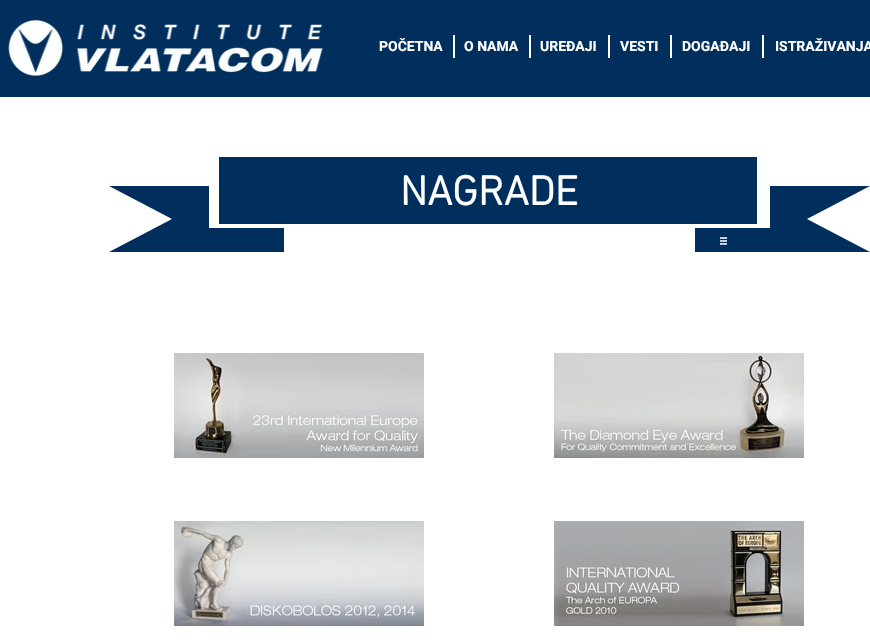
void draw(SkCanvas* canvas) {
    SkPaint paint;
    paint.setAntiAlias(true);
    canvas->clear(0xFFFFFFFF);
    paint.setColor(0xFF002E5D);
    canvas->drawRect(SkRect::MakeXYWH(0, 0, 870, 97), paint);
    canvas->drawImageRect(SkImages::DeferredFromEncodedData(SkData::MakeFromFileName("img1.png")), SkRect::MakeXYWH(8, 19, 315, 57), SkSamplingOptions());
    SkFont font1(fontMgr->matchFamilyStyle("Roboto", SkFontStyle::Bold()), 14);
    font1.setSubpixel(true);
    paint.setColor(0xFFFFFFFF);
    canvas->drawString("POČETNA", 379, 51, font1, paint);
    canvas->drawRect(SkRect::MakeXYWH(453, 35, 2, 23), paint);
    canvas->drawString("O NAMA", 464, 51, font1, paint);
    canvas->drawRect(SkRect::MakeXYWH(529, 35, 2, 23), paint);
    canvas->drawString("UREĐAJI", 540, 51, font1, paint);
    canvas->drawRect(SkRect::MakeXYWH(608, 35, 2, 23), paint);
    canvas->drawString("VESTI", 620, 51, font1, paint);
    canvas->drawRect(SkRect::MakeXYWH(670, 35, 2, 23), paint);
    canvas->drawString("DOGAĐAJI", 682, 51, font1, paint);
    canvas->drawRect(SkRect::MakeXYWH(762, 35, 2, 23), paint);
    canvas->drawString("ISTRAŽIVANJA", 775, 51, font1, paint);
    paint.setColor(0xFF002E5D);
    canvas->drawPath(SkPathBuilder().moveTo(757, 157).lineTo(219, 157).lineTo(219, 224).lineTo(757, 224).close().moveTo(870, 186).lineTo(770, 186).lineTo(770, 228).lineTo(695, 228).lineTo(695, 252).lineTo(870, 252).lineTo(807, 219).close().moveTo(209, 186).lineTo(109, 186).lineTo(172, 219).lineTo(109, 252).lineTo(284, 252).lineTo(284, 228).lineTo(209, 228).close().detach(), paint);
    SkFont font2(fontMgr->matchFamilyStyle("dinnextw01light", SkFontStyle::Bold()), 42);
    font2.setSubpixel(true);
    paint.setColor(0xFFFFFFFF);
    canvas->drawString("NAGRADE", 400, 205, font2, paint);
    canvas->drawImageRect(SkImages::DeferredFromEncodedData(SkData::MakeFromFileName("img2.png")), SkRect::MakeXYWH(720, 237, 7, 8), SkSamplingOptions());
    canvas->drawImageRect(SkImages::DeferredFromEncodedData(SkData::MakeFromFileName("img3.png")), SkRect::MakeXYWH(174, 353, 250, 105), SkSamplingOptions());
    canvas->drawImageRect(SkImages::DeferredFromEncodedData(SkData::MakeFromFileName("img4.png")), SkRect::MakeXYWH(554, 353, 250, 105), SkSamplingOptions());
    canvas->drawImageRect(SkImages::DeferredFromEncodedData(SkData::MakeFromFileName("img5.png")), SkRect::MakeXYWH(174, 521, 250, 105), SkSamplingOptions());
    canvas->drawImageRect(SkImages::DeferredFromEncodedData(SkData::MakeFromFileName("img6.png")), SkRect::MakeXYWH(554, 521, 250, 105), SkSamplingOptions());
}
